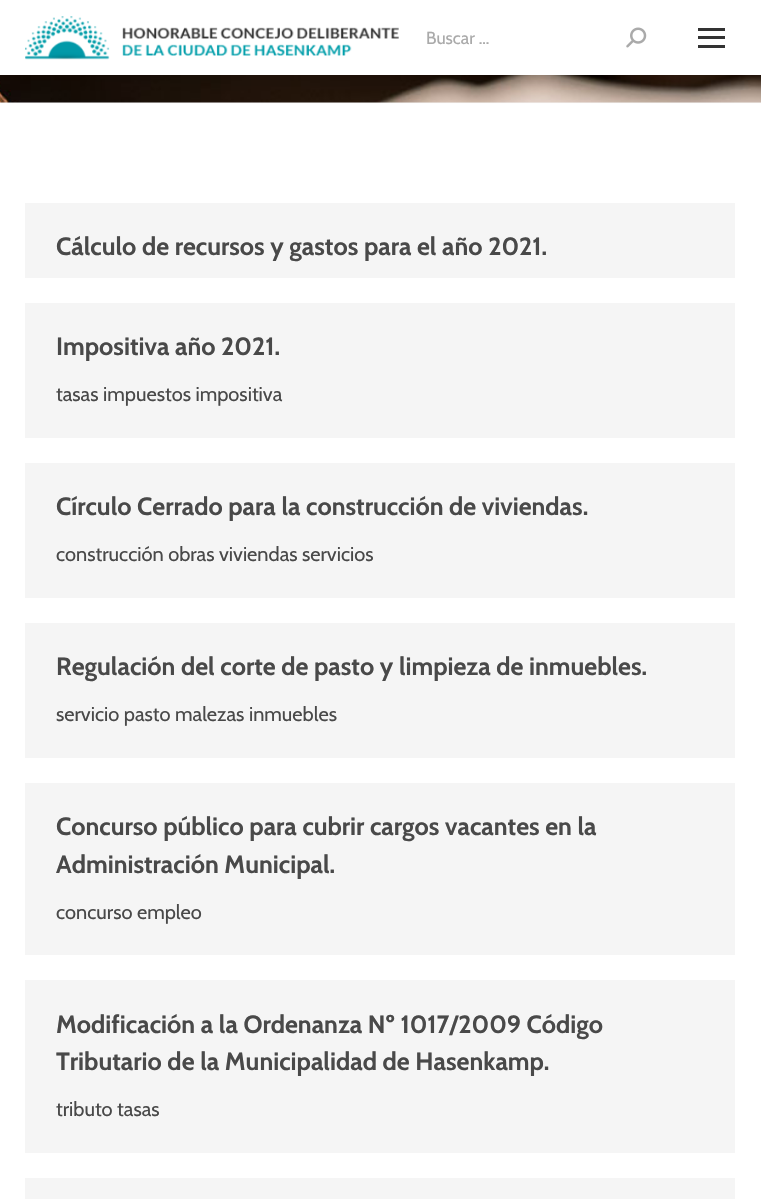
void draw(SkCanvas* canvas) {
    SkPaint paint;
    paint.setAntiAlias(true);
    canvas->clear(0xFFFFFFFF);
    paint.setColor(0xFFF5F5F5);
    canvas->drawRect(SkRect::MakeXYWH(0, 102, 761, 1), paint);
    canvas->drawImageRect(SkImages::DeferredFromEncodedData(SkData::MakeFromFileName("img3.png")), SkRect::MakeXYWH(0, 75, 761, 28), SkSamplingOptions());
    paint.setColor(0x12000000);
    paint.setMaskFilter(SkMaskFilter::MakeBlur(kNormal_SkBlurStyle, 9.5f));
    canvas->drawRect(SkRect::MakeXYWH(-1, -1, 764, 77), paint);
    paint.setMaskFilter(nullptr);
    paint.setColor(0xFFFFFFFF);
    canvas->drawRect(SkRect::MakeXYWH(0, 0, 761, 75), paint);
    canvas->drawImageRect(SkImages::DeferredFromEncodedData(SkData::MakeFromFileName("img1.png")), SkRect::MakeXYWH(25, 16, 374, 44), SkSamplingOptions());
    SkFont font1(fontMgr->matchFamilyStyle("Cabin", SkFontStyle::Normal()), 17.5f);
    font1.setSubpixel(true);
    paint.setColor(0xFFAAAAAA);
    canvas->drawString("Buscar …", 426, 44, font1, paint);
    canvas->drawImageRect(SkImages::DeferredFromEncodedData(SkData::MakeFromFileName("img2.png")), SkRect::MakeXYWH(626, 27, 21, 21), SkSamplingOptions());
    paint.setColor(0xFF333333);
    canvas->drawRect(SkRect::MakeXYWH(698, 28, 27, 3), paint);
    canvas->drawRect(SkRect::MakeXYWH(698, 36, 27, 3), paint);
    canvas->drawRect(SkRect::MakeXYWH(698, 45, 27, 3), paint);
    paint.setColor(0xFFF5F5F5);
    canvas->drawRect(SkRect::MakeXYWH(25, 203, 710, 75), paint);
    SkFont font2(fontMgr->matchFamilyStyle("Cabin", SkFontStyle::Bold()), 25);
    font2.setSubpixel(true);
    paint.setColor(0xFF494949);
    canvas->drawString("Cálculo de recursos y gastos para el año 2021.", 56, 255, font2, paint);
    paint.setColor(0xFFF5F5F5);
    canvas->drawRect(SkRect::MakeXYWH(25, 303, 710, 135), paint);
    paint.setColor(0xFF494949);
    canvas->drawString("Impositiva año 2021.", 56, 355, font2, paint);
    SkFont font3(fontMgr->matchFamilyStyle("Cabin", SkFontStyle::Normal()), 20);
    font3.setSubpixel(true);
    canvas->drawString("tasas impuestos impositiva", 56, 401, font3, paint);
    paint.setColor(0xFFF5F5F5);
    canvas->drawRect(SkRect::MakeXYWH(25, 463, 710, 135), paint);
    paint.setColor(0xFF494949);
    canvas->drawString("Círculo Cerrado para la construcción de viviendas.", 56, 515, font2, paint);
    canvas->drawString("construcción obras viviendas servicios", 56, 561, font3, paint);
    paint.setColor(0xFFF5F5F5);
    canvas->drawRect(SkRect::MakeXYWH(25, 623, 710, 135), paint);
    paint.setColor(0xFF494949);
    canvas->drawString("Regulación del corte de pasto y limpieza de inmuebles.", 56, 675, font2, paint);
    canvas->drawString("servicio pasto malezas inmuebles", 56, 721, font3, paint);
    paint.setColor(0xFFF5F5F5);
    canvas->drawRect(SkRect::MakeXYWH(25, 783, 710, 172), paint);
    paint.setColor(0xFF494949);
    canvas->drawString("Concurso público para cubrir cargos vacantes en la", 56, 835, font2, paint);
    canvas->drawString("Administración Municipal.", 56, 873, font2, paint);
    canvas->drawString("concurso empleo", 56, 919, font3, paint);
    paint.setColor(0xFFF5F5F5);
    canvas->drawRect(SkRect::MakeXYWH(25, 980, 710, 173), paint);
    paint.setColor(0xFF494949);
    canvas->drawString("Modificación a la Ordenanza Nº 1017/2009 Código", 56, 1033, font2, paint);
    canvas->drawString("Tributario de la Municipalidad de Hasenkamp.", 56, 1070, font2, paint);
    canvas->drawString("tributo tasas", 56, 1116, font3, paint);
    paint.setColor(0xFFF5F5F5);
    canvas->drawRect(SkRect::MakeXYWH(25, 1178, 710, 21), paint);
}
